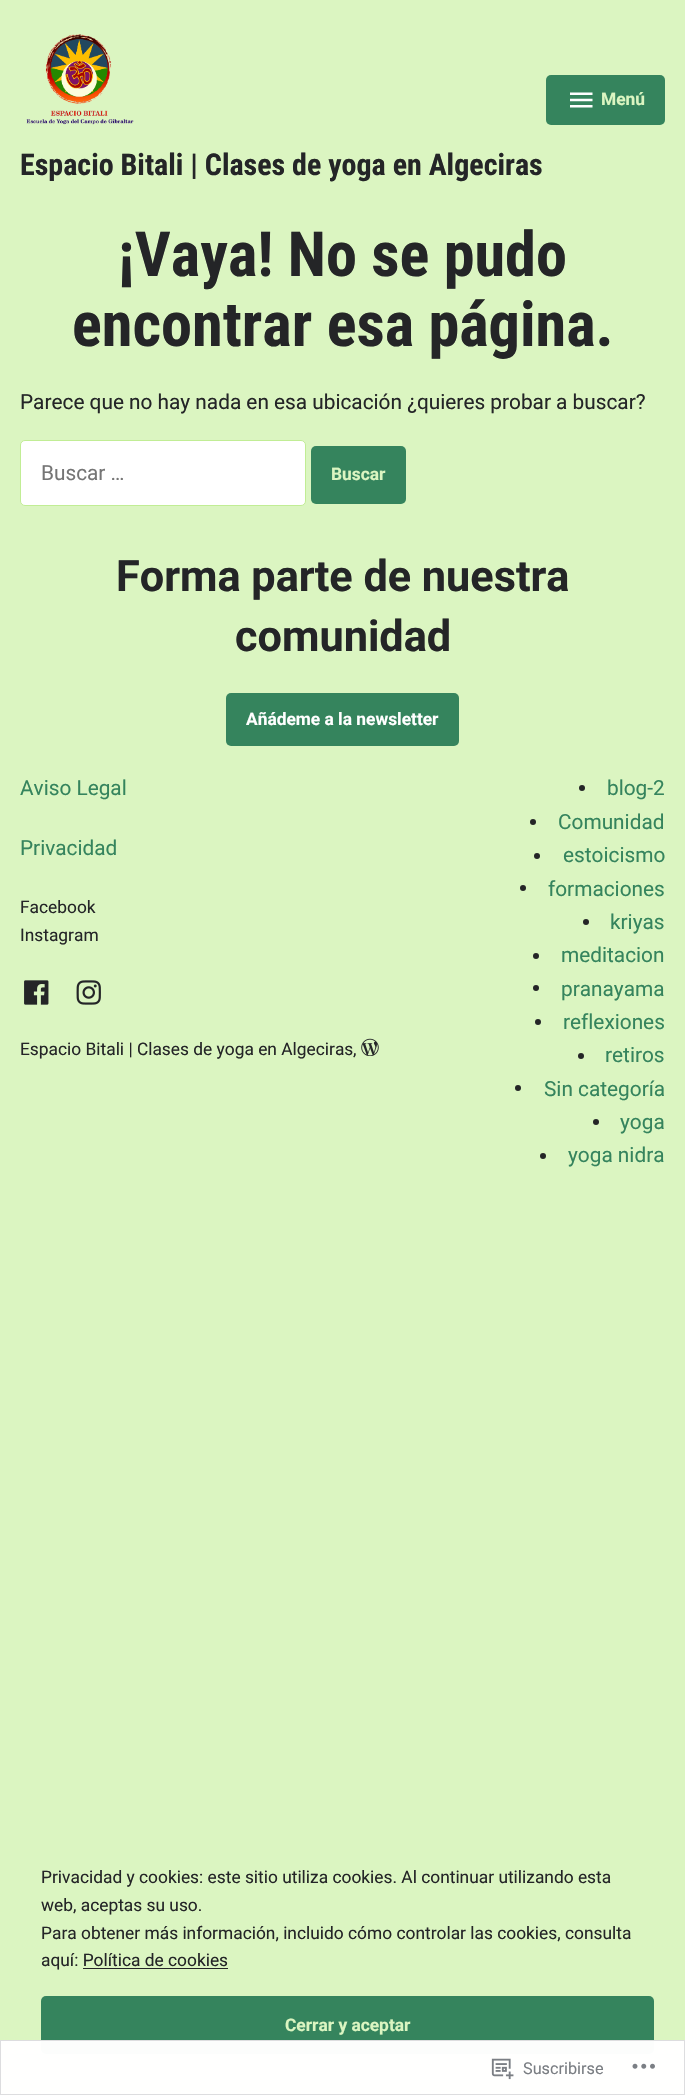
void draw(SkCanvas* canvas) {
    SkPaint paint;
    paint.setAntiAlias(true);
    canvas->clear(0xFFDBF5C1);
    paint.setColor(0xFF35845D);
    canvas->drawRoundRect(SkRect::MakeXYWH(546, 75, 119, 50), 5, 5, paint);
    canvas->drawImageRect(SkImages::DeferredFromEncodedData(SkData::MakeFromFileName("img1.png")), SkRect::MakeXYWH(570, 92, 23, 16), SkSamplingOptions());
    SkFont font1(fontMgr->matchFamilyStyle("Roboto", SkFontStyle::Bold()), 17.35f);
    font1.setSubpixel(true);
    paint.setColor(0xFFDBF5C1);
    canvas->drawString("Menú", 601, 105, font1, paint);
    canvas->drawImageRect(SkImages::DeferredFromEncodedData(SkData::MakeFromFileName("img2.png")), SkRect::MakeXYWH(26, 34, 108, 91), SkSamplingOptions());
    SkFont font2(fontMgr->matchFamilyStyle("Roboto Condensed", SkFontStyle::Bold()), 30);
    font2.setSubpixel(true);
    paint.setColor(0xFF242527);
    canvas->drawString("Espacio Bitali | Clases de yoga en Algeciras", 20, 175, font2, paint);
    SkFont font3(fontMgr->matchFamilyStyle("Roboto Condensed", SkFontStyle::Bold()), 62.25f);
    font3.setSubpixel(true);
    canvas->drawString("¡Vaya! No se pudo", 118, 276, font3, paint);
    canvas->drawString("encontrar esa página.", 72, 346, font3, paint);
    SkFont font4(fontMgr->matchFamilyStyle("Roboto", SkFontStyle::Normal()), 20.8f);
    font4.setSubpixel(true);
    canvas->drawString("Parece que no hay nada en esa ubicación ¿quieres probar a buscar?", 20, 409, font4, paint);
    paint.setColor(0xFFFFFFFF);
    canvas->drawRoundRect(SkRect::MakeXYWH(20.5f, 440.5f, 285, 65), 4.5f, 4.5f, paint);
    paint.setStyle(SkPaint::kStroke_Style);
    paint.setStrokeWidth(1);
    paint.setColor(0xFFC1ED95);
    canvas->drawRoundRect(SkRect::MakeXYWH(20.5f, 440.5f, 285, 65), 4.5f, 4.5f, paint);
    paint.setStyle(SkPaint::kFill_Style);
    paint.setColor(0xFF757575);
    canvas->drawString("Buscar …", 41, 480, font4, paint);
    paint.setColor(0xFF35845D);
    canvas->drawRoundRect(SkRect::MakeXYWH(311, 446, 95, 58), 5, 5, paint);
    paint.setColor(0xFFDBF5C1);
    canvas->drawString("Buscar", 331, 480, font1, paint);
    SkFont font5(fontMgr->matchFamilyStyle("Roboto", SkFontStyle::Bold()), 43.25f);
    font5.setSubpixel(true);
    paint.setColor(0xFF242527);
    canvas->drawString("Forma parte de nuestra", 116, 591, font5, paint);
    canvas->drawString("comunidad", 235, 651, font5, paint);
    paint.setColor(0xFF35845D);
    canvas->drawRoundRect(SkRect::MakeXYWH(226, 693, 233, 53), 5, 5, paint);
    paint.setColor(0xFFFFFFFF);
    canvas->drawString("Añádeme a la newsletter", 246, 725, font1, paint);
    paint.setColor(0xFF35845D);
    canvas->drawString("Aviso Legal", 20, 795, font4, paint);
    paint.setColor(0xFF242527);
    canvas->drawCircle(582, 788, 3, paint);
    paint.setColor(0xFF35845D);
    canvas->drawString("blog-2", 607, 795, font4, paint);
    paint.setColor(0xFF242527);
    canvas->drawCircle(533, 822, 3, paint);
    paint.setColor(0xFF35845D);
    canvas->drawString("Comunidad", 558, 829, font4, paint);
    paint.setColor(0xFF242527);
    canvas->drawCircle(537, 856, 3, paint);
    paint.setColor(0xFF35845D);
    canvas->drawString("estoicismo", 563, 862, font4, paint);
    paint.setColor(0xFF242527);
    canvas->drawCircle(523, 888, 3, paint);
    paint.setColor(0xFF35845D);
    canvas->drawString("formaciones", 548, 896, font4, paint);
    paint.setColor(0xFF242527);
    canvas->drawCircle(586, 922, 3, paint);
    paint.setColor(0xFF35845D);
    canvas->drawString("kriyas", 610, 929, font4, paint);
    paint.setColor(0xFF242527);
    canvas->drawCircle(536, 956, 3, paint);
    paint.setColor(0xFF35845D);
    canvas->drawString("meditacion", 561, 962, font4, paint);
    paint.setColor(0xFF242527);
    canvas->drawCircle(536, 988, 3, paint);
    paint.setColor(0xFF35845D);
    canvas->drawString("pranayama", 561, 996, font4, paint);
    paint.setColor(0xFF242527);
    canvas->drawCircle(538, 1022, 3, paint);
    paint.setColor(0xFF35845D);
    canvas->drawString("reflexiones", 563, 1029, font4, paint);
    paint.setColor(0xFF242527);
    canvas->drawCircle(581, 1056, 3, paint);
    paint.setColor(0xFF35845D);
    canvas->drawString("retiros", 605, 1062, font4, paint);
    paint.setColor(0xFF242527);
    canvas->drawCircle(518, 1088, 3, paint);
    paint.setColor(0xFF35845D);
    canvas->drawString("Sin categoría", 544, 1096, font4, paint);
    paint.setColor(0xFF242527);
    canvas->drawCircle(596, 1122, 3, paint);
    paint.setColor(0xFF35845D);
    canvas->drawString("yoga", 620, 1129, font4, paint);
    paint.setColor(0xFF242527);
    canvas->drawCircle(543, 1156, 3, paint);
    paint.setColor(0xFF35845D);
    canvas->drawString("yoga nidra", 568, 1162, font4, paint);
    canvas->drawString("Privacidad", 20, 855, font4, paint);
    SkFont font6(fontMgr->matchFamilyStyle("Roboto", SkFontStyle::Normal()), 17.35f);
    font6.setSubpixel(true);
    paint.setColor(0xFF242527);
    canvas->drawString("Facebook", 20, 913, font6, paint);
    canvas->drawString("Instagram", 20, 941, font6, paint);
    canvas->drawImageRect(SkImages::DeferredFromEncodedData(SkData::MakeFromFileName("img3.png")), SkRect::MakeXYWH(24, 980, 25, 25), SkSamplingOptions());
    canvas->drawImageRect(SkImages::DeferredFromEncodedData(SkData::MakeFromFileName("img4.png")), SkRect::MakeXYWH(76, 980, 25, 25), SkSamplingOptions());
    canvas->drawString("Espacio Bitali | Clases de yoga en Algeciras", 20, 1055, font6, paint);
    canvas->drawString(",", 353, 1055, font6, paint);
    canvas->drawImageRect(SkImages::DeferredFromEncodedData(SkData::MakeFromFileName("img5.png")), SkRect::MakeXYWH(361, 1038, 18, 18), SkSamplingOptions());
    canvas->drawString("Privacidad y cookies: este sitio utiliza cookies. Al continuar utilizando esta", 41, 1883, font6, paint);
    canvas->drawString("web, aceptas su uso.", 41, 1911, font6, paint);
    canvas->drawString("Para obtener más información, incluido cómo controlar las cookies, consulta", 41, 1939, font6, paint);
    canvas->drawString("aquí: Política de cookies", 41, 1966, font6, paint);
    canvas->drawRect(SkRect::MakeXYWH(83, 1968, 145, 1), paint);
    paint.setColor(0xFF35845D);
    canvas->drawRoundRect(SkRect::MakeXYWH(41, 1996, 613, 58), 5, 5, paint);
    paint.setColor(0xFFDBF5C1);
    canvas->drawString("Cerrar y aceptar", 285, 2031, font1, paint);
    paint.setColor(0xFAFFFFFF);
    canvas->drawRect(SkRect::MakeXYWH(0, 2040, 685, 55), paint);
    paint.setStyle(SkPaint::kStroke_Style);
    paint.setColor(0xFADCDCDE);
    canvas->drawRect(SkRect::MakeXYWH(0.5f, 2040.5f, 684, 54), paint);
    canvas->drawImageRect(SkImages::DeferredFromEncodedData(SkData::MakeFromFileName("img6.png")), SkRect::MakeXYWH(491, 2058, 23, 22), SkSamplingOptions());
    SkFont font7(fontMgr->matchFamilyStyle("Roboto", SkFontStyle::Normal()), 16.25f);
    font7.setSubpixel(true);
    paint.setStyle(SkPaint::kFill_Style);
    paint.setColor(0xFF7A7E83);
    canvas->drawString("Suscribirse", 523, 2074, font7, paint);
    canvas->drawImageRect(SkImages::DeferredFromEncodedData(SkData::MakeFromFileName("img7.png")), SkRect::MakeXYWH(632, 2063, 23, 6), SkSamplingOptions());
}
